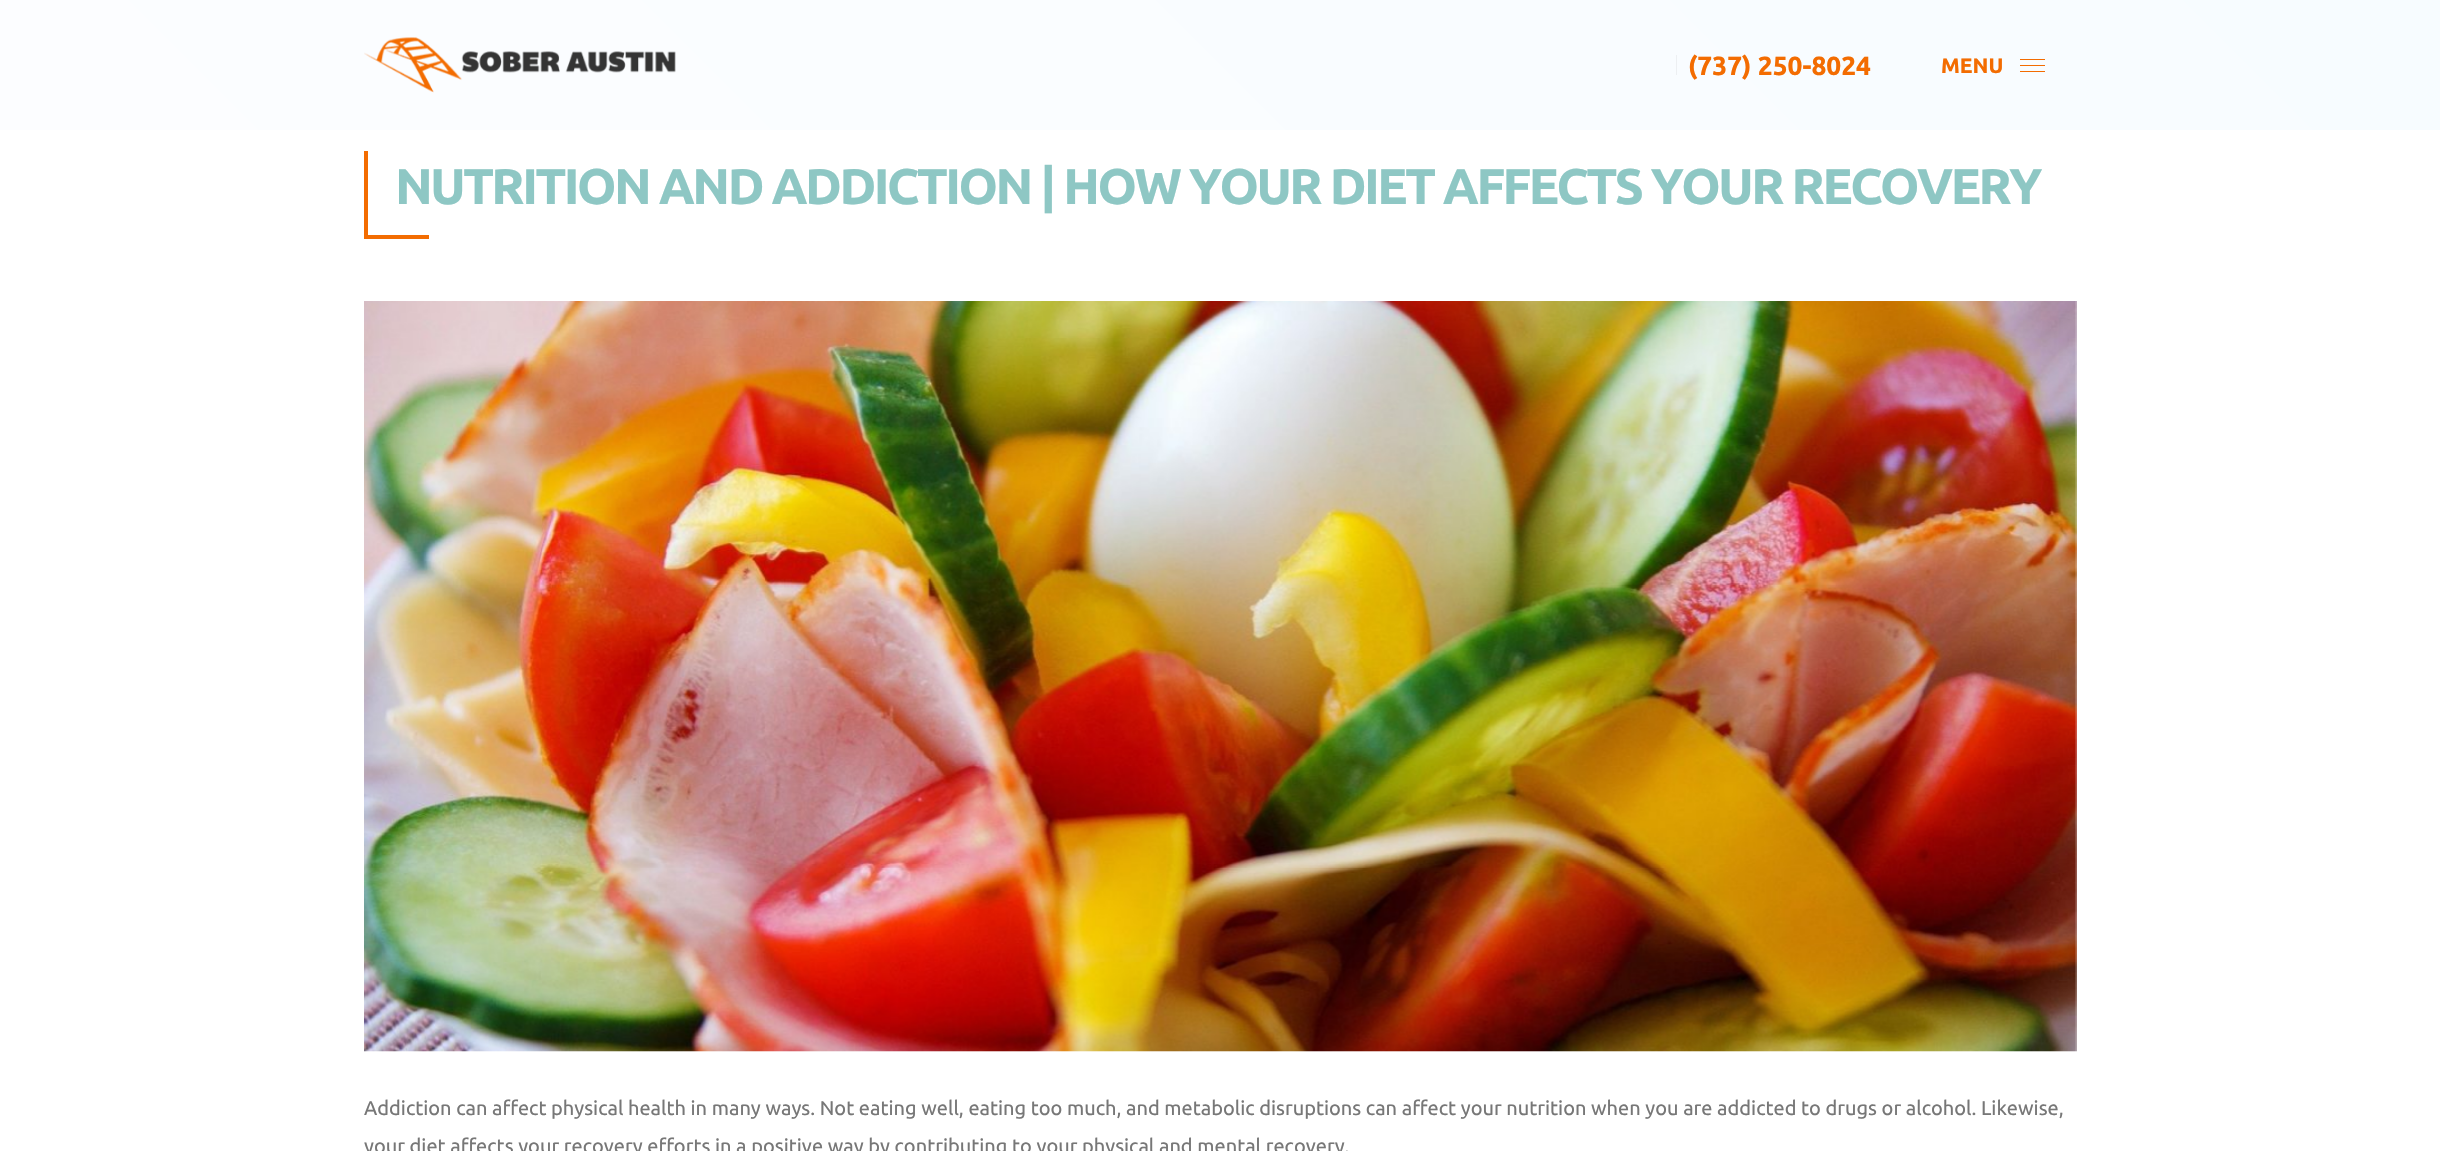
void draw(SkCanvas* canvas) {
    SkPaint paint;
    paint.setAntiAlias(true);
    auto spacedText = [&](const char* s, float x, float y, const SkFont& font, const SkPaint& ink, float letter, float word) {
        std::vector<SkGlyphID> glyphs(font.countText(s, strlen(s), SkTextEncoding::kUTF8));
        std::vector<float> xs(glyphs.size());
        font.textToGlyphs(s, strlen(s), SkTextEncoding::kUTF8, glyphs);
        font.getXPos(glyphs, xs, x);
        float extra = 0;
        for (size_t i = 0; i < glyphs.size(); i++) {
            xs[i] += extra;
            extra += letter + word * (glyphs[i] == font.unicharToGlyph(' '));
        }
        canvas->drawTextBlob(SkTextBlob::MakeFromPosHGlyphs(glyphs, xs, y, font), 0, 0, ink);
    };
    canvas->clear(0xFFFFFFFF);
    {
        const SkColor colors[] = {0xFFFCFDFF, 0xFFF7FCFF};
        const float stops[] = {0, 1};
        const SkPoint ends[] = {{578, 707}, {1863, -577}};
        paint.setShader(SkGradientShader::MakeLinear(ends, colors, stops, 2, SkTileMode::kClamp));
        paint.setAlpha(255);
    }
    canvas->drawRect(SkRect::MakeXYWH(0, 0, 2440, 130), paint);
    canvas->drawImageRect(SkImages::DeferredFromEncodedData(SkData::MakeFromFileName("img1.png")), SkRect::MakeXYWH(364, 37, 312, 56), SkSamplingOptions());
    paint.setShader(nullptr);
    paint.setColor(0xFFEDEFF2);
    canvas->drawRect(SkRect::MakeXYWH(1676, 55, 1, 20), paint);
    SkFont font1(fontMgr->matchFamilyStyle("Ubuntu", SkFontStyle::Bold()), 26.25f);
    font1.setSubpixel(true);
    paint.setColor(0xFFF36C01);
    canvas->drawString("(737) 250-8024", 1688, 75, font1, paint);
    SkFont font2(fontMgr->matchFamilyStyle("Ubuntu", SkFontStyle::Bold()), 21);
    font2.setSubpixel(true);
    canvas->drawString("MENU", 1941, 73, font2, paint);
    canvas->drawRect(SkRect::MakeXYWH(2020, 59, 25, 1), paint);
    canvas->drawRect(SkRect::MakeXYWH(2020, 65, 25, 1), paint);
    canvas->drawRect(SkRect::MakeXYWH(2020, 71, 25, 1), paint);
    canvas->drawRect(SkRect::MakeXYWH(364, 151, 4, 88), paint);
    SkFont font3(fontMgr->matchFamilyStyle("Ubuntu", SkFontStyle::Bold()), 50);
    font3.setSubpixel(true);
    paint.setColor(0xFF8EC7C4);
    spacedText("NUTRITION AND ADDICTION | HOW YOUR DIET AFFECTS YOUR RECOVERY", 395, 204, font3, paint, -2.5f, 0);
    paint.setColor(0xFFF36C01);
    canvas->drawRect(SkRect::MakeXYWH(364, 235, 65, 4), paint);
    canvas->drawImageRect(SkImages::DeferredFromEncodedData(SkData::MakeFromFileName("img2.png")), SkRect::MakeXYWH(364, 301, 1713, 751), SkSamplingOptions());
    SkFont font4(fontMgr->matchFamilyStyle("Ubuntu", SkFontStyle::Normal()), 20);
    font4.setSubpixel(true);
    paint.setColor(0xFF777777);
    canvas->drawString("Addiction can affect physical health in many ways. Not eating well, eating too much, and metabolic disruptions can affect your nutrition when you are addicted to drugs or alcohol. Likewise,", 364, 1115, font4, paint);
    canvas->drawString("your diet affects your recovery efforts in a positive way by contributing to your physical and mental recovery.", 364, 1153, font4, paint);
}
